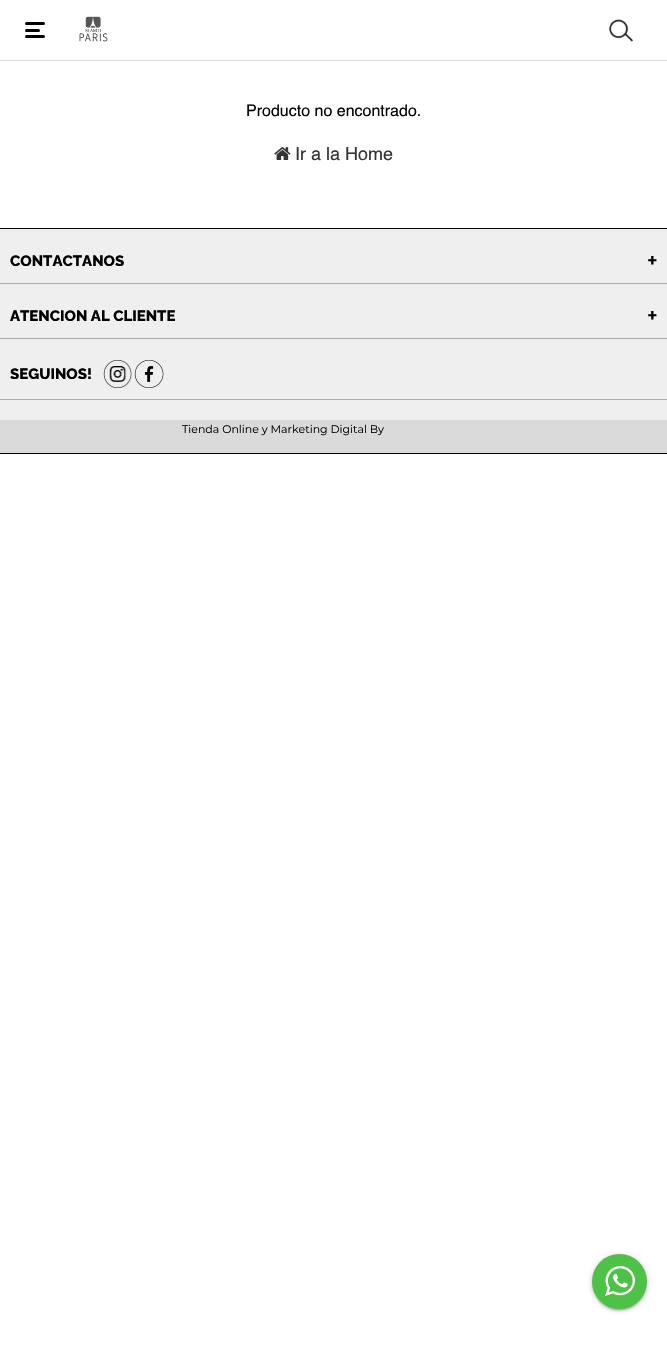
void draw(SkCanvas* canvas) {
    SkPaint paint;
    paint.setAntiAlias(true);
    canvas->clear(0xFFFFFFFF);
    paint.setColor(0xFFDCDCDC);
    canvas->drawRect(SkRect::MakeXYWH(0, 60, 667, 1), paint);
    paint.setColor(0xFF000000);
    canvas->drawRoundRect(SkRect::MakeXYWH(25, 22, 20, 3), 1.5f, 1.5f, paint);
    canvas->drawRoundRect(SkRect::MakeXYWH(25, 29, 15, 3), 1.5f, 1.5f, paint);
    canvas->drawRoundRect(SkRect::MakeXYWH(25, 35, 20, 3), 1.5f, 1.5f, paint);
    canvas->drawImageRect(SkImages::DeferredFromEncodedData(SkData::MakeFromFileName("img1.png")), SkRect::MakeXYWH(79, 16, 29, 26), SkSamplingOptions());
    canvas->drawImageRect(SkImages::DeferredFromEncodedData(SkData::MakeFromFileName("img2.png")), SkRect::MakeXYWH(609, 19, 25, 23), SkSamplingOptions());
    SkFont font1(fontMgr->matchFamilyStyle("Helvetica", SkFontStyle::Normal()), 16);
    font1.setSubpixel(true);
    canvas->drawString("Producto no encontrado.", 246, 116, font1, paint);
    canvas->drawImageRect(SkImages::DeferredFromEncodedData(SkData::MakeFromFileName("img3.png")), SkRect::MakeXYWH(274, 147, 17, 13), SkSamplingOptions());
    SkFont font2(fontMgr->matchFamilyStyle("Helvetica", SkFontStyle::Normal()), 18);
    font2.setSubpixel(true);
    paint.setColor(0xFF333333);
    canvas->drawString("Ir a la Home", 295, 160, font2, paint);
    paint.setColor(0xFFEFEFEF);
    canvas->drawRect(SkRect::MakeXYWH(0, 229, 667, 191), paint);
    paint.setColor(0xFF000000);
    canvas->drawRect(SkRect::MakeXYWH(0, 228, 667, 1), paint);
    canvas->drawRect(SkRect::MakeXYWH(0, 453, 667, 1), paint);
    paint.setColor(0xFFABABAB);
    canvas->drawRect(SkRect::MakeXYWH(0, 283, 667, 1), paint);
    SkFont font3(fontMgr->matchFamilyStyle("Raleway", SkFontStyle(800, SkFontStyle::kNormal_Width, SkFontStyle::kUpright_Slant)), 15);
    font3.setSubpixel(true);
    paint.setColor(0xFF000000);
    canvas->drawString("CONTACTANOS", 10, 266, font3, paint);
    SkFont font4(fontMgr->matchFamilyStyle("Raleway", SkFontStyle::Bold()), 24);
    font4.setSubpixel(true);
    canvas->drawString("+", 647, 269, font4, paint);
    paint.setColor(0xFFABABAB);
    canvas->drawRect(SkRect::MakeXYWH(0, 338, 667, 1), paint);
    paint.setColor(0xFF000000);
    canvas->drawString("ATENCION AL CLIENTE", 10, 321, font3, paint);
    canvas->drawString("+", 647, 324, font4, paint);
    paint.setColor(0xFFABABAB);
    canvas->drawRect(SkRect::MakeXYWH(0, 399, 667, 1), paint);
    paint.setColor(0xFF000000);
    canvas->drawString("SEGUINOS!", 10, 379, font3, paint);
    canvas->drawImageRect(SkImages::DeferredFromEncodedData(SkData::MakeFromFileName("img4.png")), SkRect::MakeXYWH(103, 360, 29, 28), SkSamplingOptions());
    canvas->drawImageRect(SkImages::DeferredFromEncodedData(SkData::MakeFromFileName("img5.png")), SkRect::MakeXYWH(134, 360, 30, 28), SkSamplingOptions());
    paint.setColor(0xFFDADADA);
    canvas->drawRect(SkRect::MakeXYWH(0, 420, 667, 33), paint);
    SkFont font5(fontMgr->matchFamilyStyle("Montserrat", SkFontStyle::Normal()), 11);
    font5.setSubpixel(true);
    paint.setColor(0xFF000000);
    canvas->drawString("Tienda Online y Marketing Digital By", 182, 433, font5, paint);
    paint.setColor(0x33000000);
    paint.setMaskFilter(SkMaskFilter::MakeBlur(kNormal_SkBlurStyle, 2.5f));
    canvas->drawRoundRect(SkRect::MakeXYWH(592, 1255, 55, 55), 27.5f, 27.5f, paint);
    paint.setMaskFilter(nullptr);
    paint.setColor(0x1F000000);
    paint.setMaskFilter(SkMaskFilter::MakeBlur(kNormal_SkBlurStyle, 0.5f));
    canvas->drawRoundRect(SkRect::MakeXYWH(594, 1259, 51, 51), 25.5f, 25.5f, paint);
    paint.setMaskFilter(nullptr);
    paint.setColor(0x24000000);
    paint.setMaskFilter(SkMaskFilter::MakeBlur(kNormal_SkBlurStyle, 1));
    canvas->drawRoundRect(SkRect::MakeXYWH(592, 1256, 55, 55), 27.5f, 27.5f, paint);
    paint.setMaskFilter(nullptr);
    paint.setColor(0xFF4DC247);
    canvas->drawCircle(619.5f, 1281.5f, 27.5f, paint);
    canvas->drawImageRect(SkImages::DeferredFromEncodedData(SkData::MakeFromFileName("img6.png")), SkRect::MakeXYWH(605, 1266, 30, 30), SkSamplingOptions());
}
